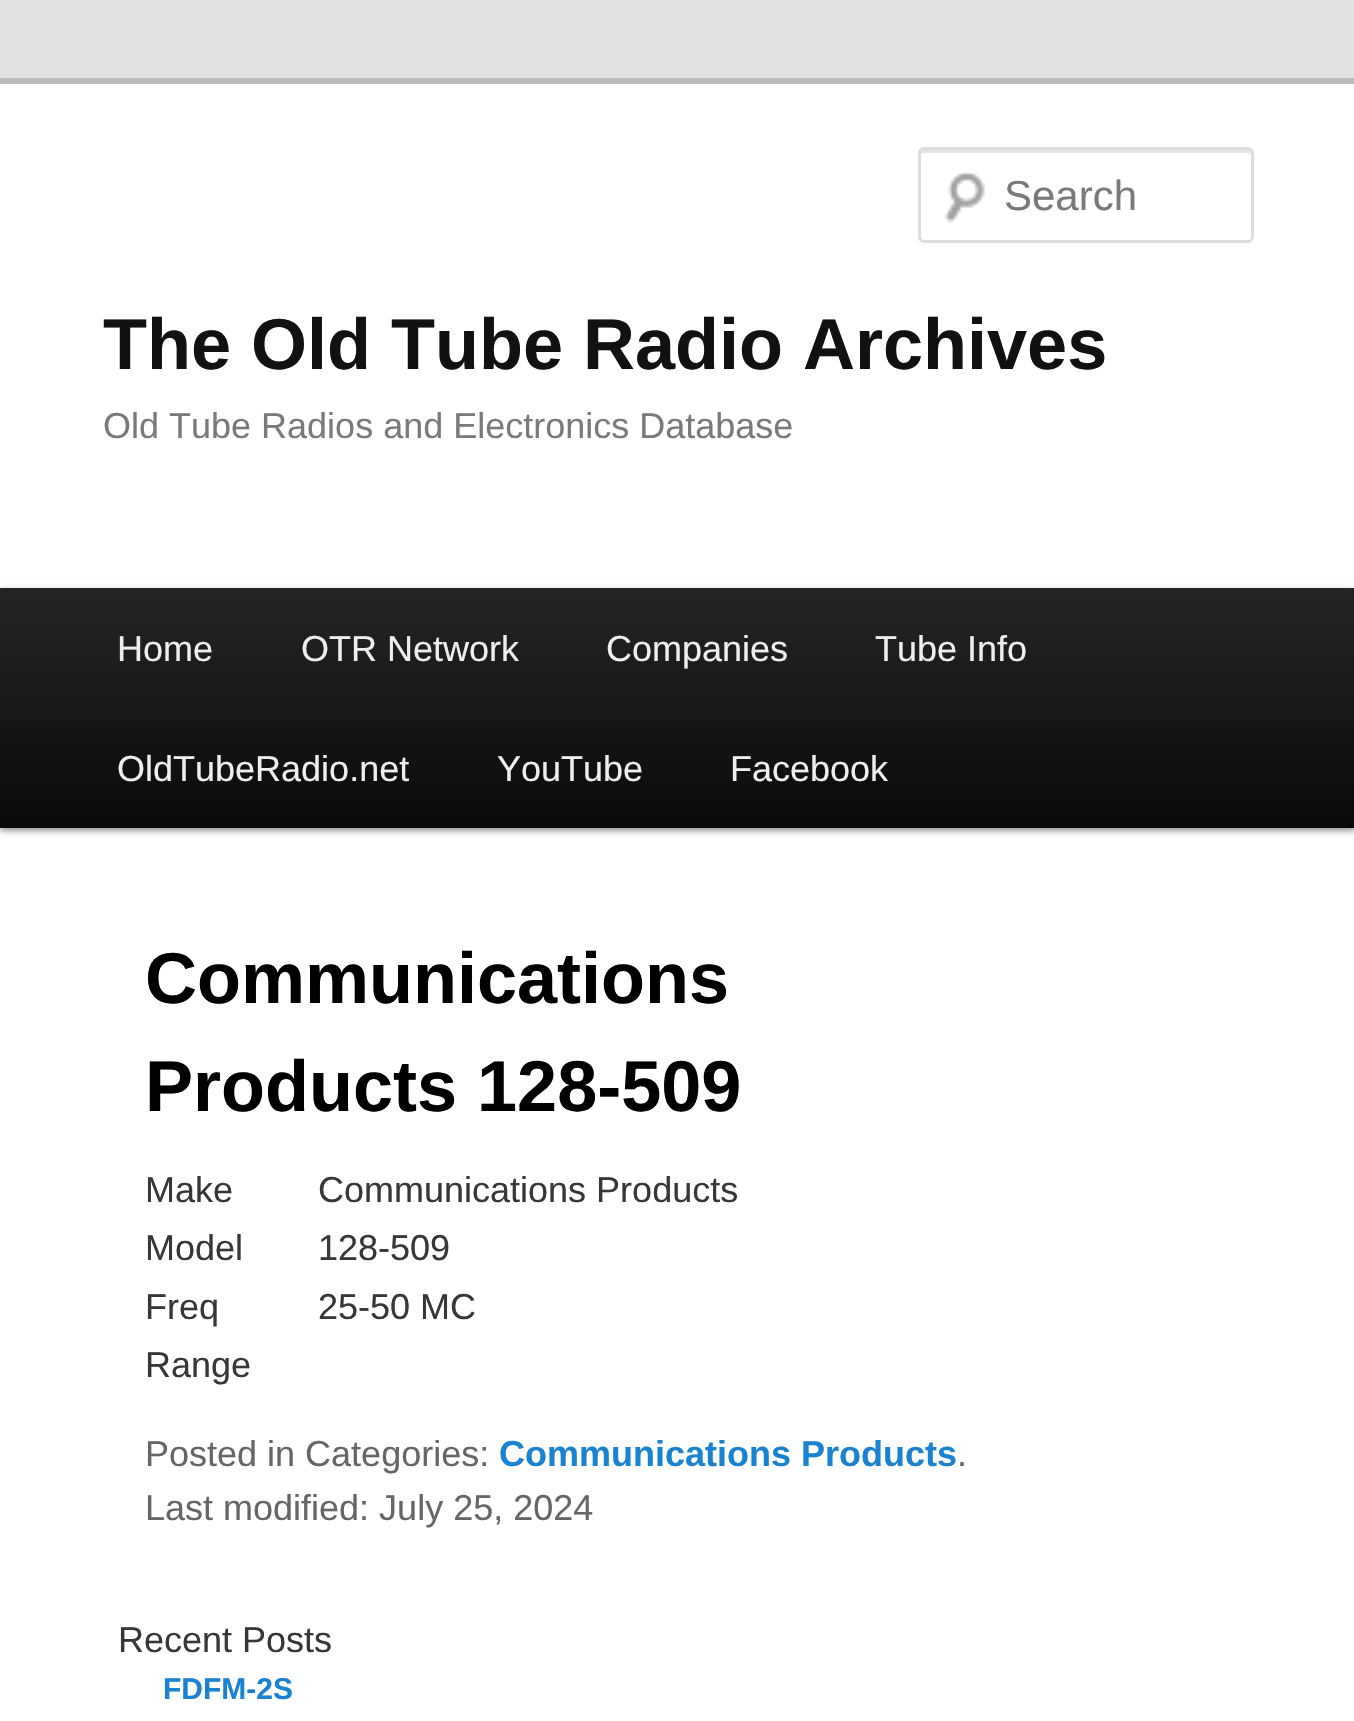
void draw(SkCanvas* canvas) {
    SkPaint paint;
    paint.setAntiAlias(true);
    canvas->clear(0xFFE2E2E2);
    paint.setColor(0xFFFFFFFF);
    canvas->drawRect(SkRect::MakeXYWH(0, 84, 1354, 1637), paint);
    paint.setColor(0xFFBBBBBB);
    canvas->drawRect(SkRect::MakeXYWH(0, 78, 1354, 6), paint);
    canvas->drawImageRect(SkImages::DeferredFromEncodedData(SkData::MakeFromFileName("img1.png")), SkRect::MakeXYWH(944, 171, 41, 52), SkSamplingOptions());
    paint.setColor(0xFFE6E6E6);
    canvas->drawPath(SkPathBuilder().moveTo(924, 153).lineTo(1248, 153).cubicTo(1250, 153, 1251, 154, 1251, 156).lineTo(1251, 153).cubicTo(1251, 151, 1250, 150, 1248, 150).lineTo(924, 150).cubicTo(922, 150, 921, 151, 921, 153).lineTo(921, 156).cubicTo(921, 154, 922, 153, 924, 153).close().detach(), paint);
    paint.setStyle(SkPaint::kStroke_Style);
    paint.setStrokeWidth(3);
    paint.setColor(0xFFDDDDDD);
    canvas->drawRoundRect(SkRect::MakeXYWH(919.5f, 148.5f, 333, 93), 4.5f, 4.5f, paint);
    SkFont font1(fontMgr->matchFamilyStyle("Liberation Sans", SkFontStyle::Normal()), 42);
    font1.setSubpixel(true);
    paint.setStyle(SkPaint::kFill_Style);
    paint.setColor(0xFF7A7A7A);
    canvas->drawString("Search", 1004, 210, font1, paint);
    SkFont font2(fontMgr->matchFamilyStyle("Liberation Sans", SkFontStyle::Bold()), 72);
    font2.setSubpixel(true);
    paint.setColor(0xFF111111);
    canvas->drawString("The Old Tube Radio Archives", 103, 369, font2, paint);
    SkFont font3(fontMgr->matchFamilyStyle("Liberation Sans", SkFontStyle::Normal()), 36);
    font3.setSubpixel(true);
    paint.setColor(0xFF7A7A7A);
    canvas->drawString("Old Tube Radios and Electronics Database", 103, 438, font3, paint);
    paint.setColor(0x66000000);
    paint.setMaskFilter(SkMaskFilter::MakeBlur(kNormal_SkBlurStyle, 3));
    canvas->drawRect(SkRect::MakeXYWH(0, 591, 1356, 240), paint);
    paint.setMaskFilter(nullptr);
    {
        const SkColor colors[] = {0xFF252525, 0xFF0A0A0A};
        const float stops[] = {0, 1};
        const SkPoint ends[] = {{678, 588}, {678, 828}};
        paint.setShader(SkGradientShader::MakeLinear(ends, colors, stops, 2, SkTileMode::kClamp));
        paint.setAlpha(255);
    }
    canvas->drawRect(SkRect::MakeXYWH(0, 588, 1354, 240), paint);
    paint.setShader(nullptr);
    paint.setColor(0xFFEEEEEE);
    canvas->drawString("Home", 117, 661, font3, paint);
    canvas->drawString("OTR Network", 301, 661, font3, paint);
    canvas->drawString("Companies", 606, 661, font3, paint);
    canvas->drawString("Tube Info", 875, 661, font3, paint);
    canvas->drawString("OldTubeRadio.net", 117, 781, font3, paint);
    canvas->drawString("YouTube", 497, 781, font3, paint);
    canvas->drawString("Facebook", 730, 781, font3, paint);
    paint.setColor(0xFF000000);
    canvas->drawString("Communications", 145, 1003, font2, paint);
    canvas->drawString("Products 128-509", 145, 1111, font2, paint);
    paint.setColor(0xFF373737);
    canvas->drawString("Make", 145, 1202, font3, paint);
    canvas->drawString("Communications Products", 318, 1202, font3, paint);
    canvas->drawString("Model", 145, 1260, font3, paint);
    canvas->drawString("128-509", 318, 1260, font3, paint);
    canvas->drawString("Freq", 145, 1319, font3, paint);
    canvas->drawString("Range", 145, 1377, font3, paint);
    canvas->drawString("25-50 MC", 318, 1319, font3, paint);
    paint.setColor(0xFF666666);
    canvas->drawString("Posted in Categories:", 145, 1466, font3, paint);
    SkFont font4(fontMgr->matchFamilyStyle("Liberation Sans", SkFontStyle::Bold()), 36);
    font4.setSubpixel(true);
    paint.setColor(0xFF1982D1);
    canvas->drawString("Communications Products", 499, 1466, font4, paint);
    paint.setColor(0xFF666666);
    canvas->drawString(".", 957, 1466, font3, paint);
    canvas->drawString("Last modified: July 25, 2024", 145, 1520, font3, paint);
    paint.setColor(0xFF373737);
    canvas->drawString("Recent Posts", 118, 1652, font3, paint);
    SkFont font5(fontMgr->matchFamilyStyle("Liberation Sans", SkFontStyle::Bold()), 30);
    font5.setSubpixel(true);
    paint.setColor(0xFF1982D1);
    canvas->drawString("FDFM-2S", 163, 1699, font5, paint);
}
